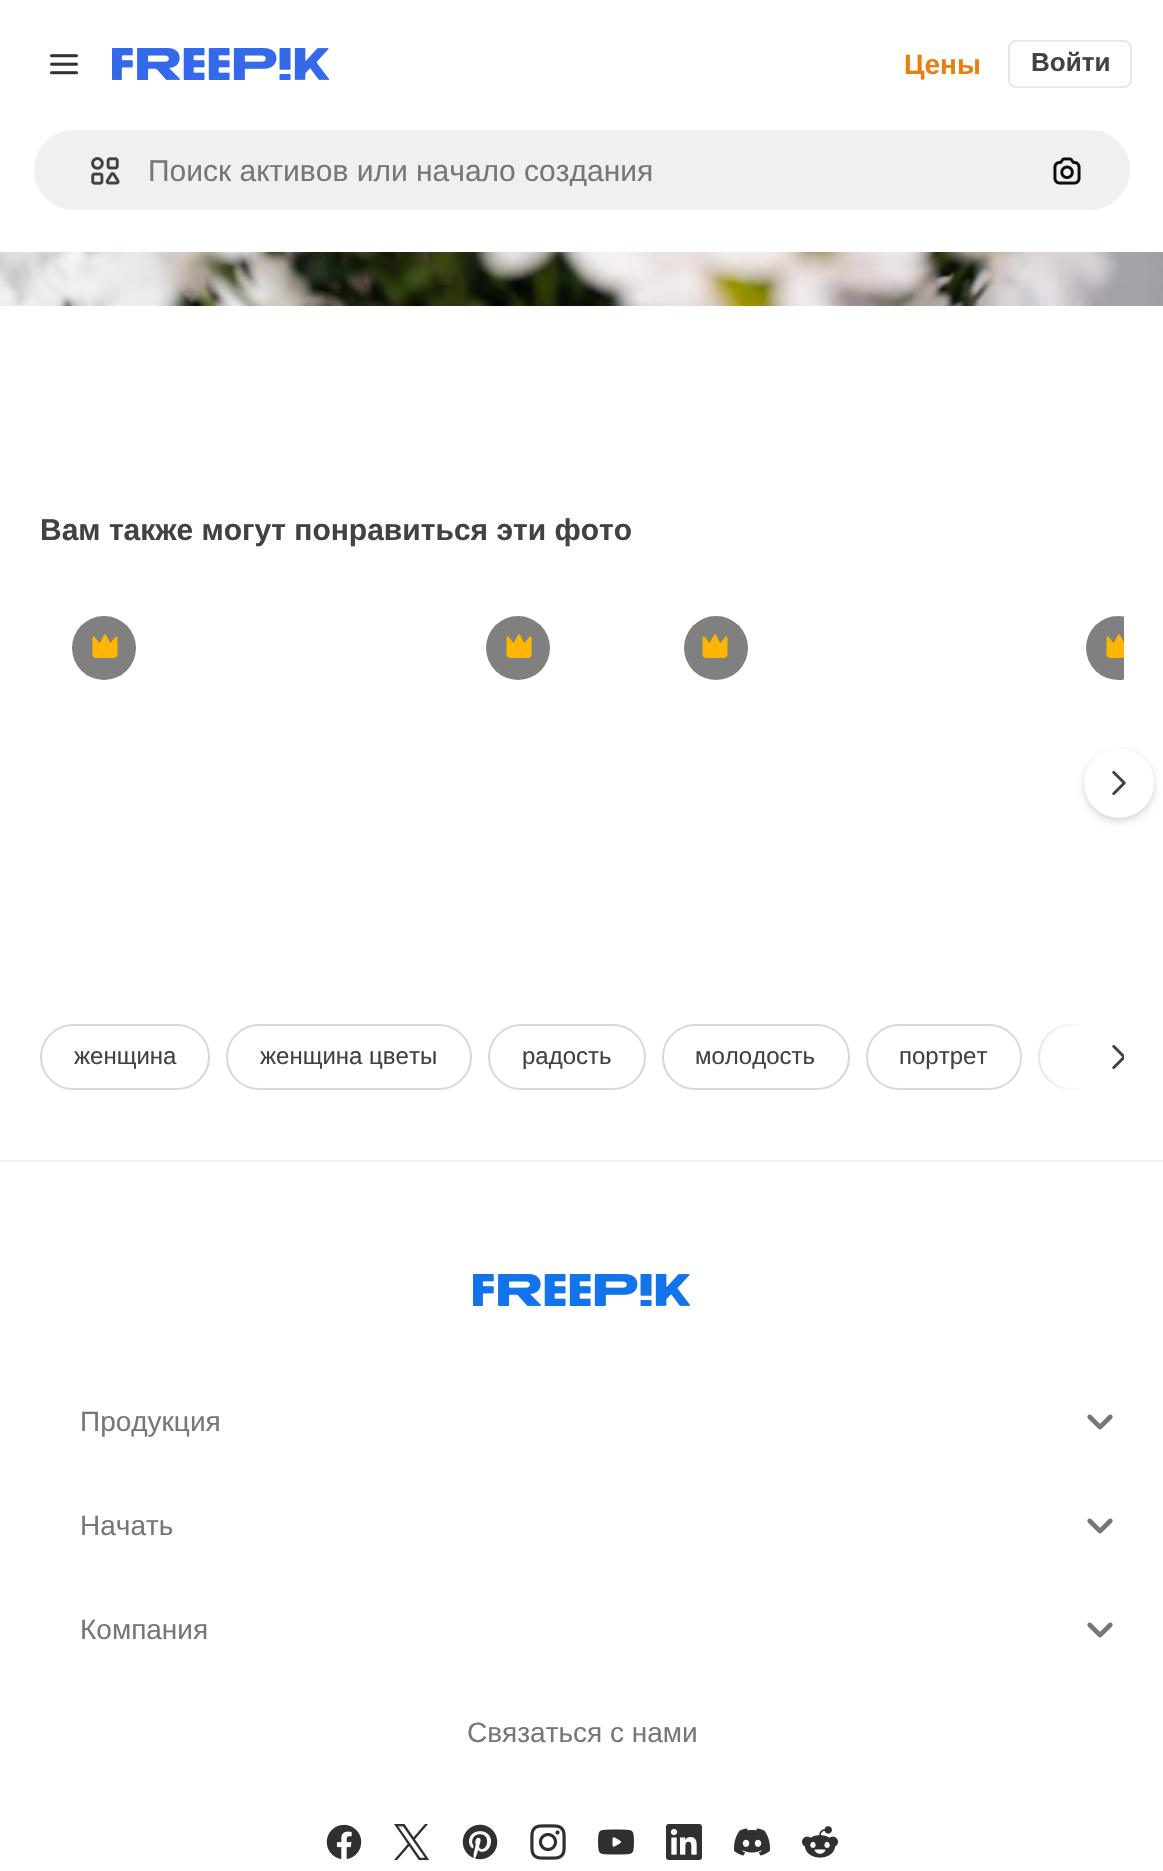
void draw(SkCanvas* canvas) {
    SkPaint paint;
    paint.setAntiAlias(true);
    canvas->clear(0xFFFFFFFF);
    canvas->drawImageRect(SkImages::DeferredFromEncodedData(SkData::MakeFromFileName("img1.png")), SkRect::MakeXYWH(50, 54, 28, 21), SkSamplingOptions());
    canvas->drawImageRect(SkImages::DeferredFromEncodedData(SkData::MakeFromFileName("img2.png")), SkRect::MakeXYWH(112, 48, 218, 32), SkSamplingOptions());
    SkFont font1(fontMgr->matchFamilyStyle("Liberation Sans", SkFontStyle::Bold()), 28);
    font1.setSubpixel(true);
    paint.setColor(0xFFEA7E11);
    canvas->drawString("Цены", 904, 74, font1, paint);
    paint.setStyle(SkPaint::kStroke_Style);
    paint.setStrokeWidth(2);
    paint.setColor(0xFFE7E7E7);
    canvas->drawRoundRect(SkRect::MakeXYWH(1009, 41, 122, 46), 7, 7, paint);
    SkFont font2(fontMgr->matchFamilyStyle("Liberation Sans", SkFontStyle::Bold()), 26);
    font2.setSubpixel(true);
    paint.setStyle(SkPaint::kFill_Style);
    paint.setColor(0xFF424242);
    canvas->drawString("Войти", 1031, 71, font2, paint);
    paint.setColor(0xFFF0F0F0);
    canvas->drawRoundRect(SkRect::MakeXYWH(33, 129, 1098, 82), 41, 41, paint);
    paint.setStyle(SkPaint::kStroke_Style);
    paint.setColor(0xFFFFFFFF);
    canvas->drawRoundRect(SkRect::MakeXYWH(33, 129, 1098, 82), 41, 41, paint);
    canvas->drawImageRect(SkImages::DeferredFromEncodedData(SkData::MakeFromFileName("img3.png")), SkRect::MakeXYWH(91, 157, 29, 28), SkSamplingOptions());
    canvas->save();
    canvas->clipRect(SkRect::MakeXYWH(148, 152, 882, 34));
    SkFont font3(fontMgr->matchFamilyStyle("Liberation Sans", SkFontStyle::Normal()), 30);
    font3.setSubpixel(true);
    paint.setStyle(SkPaint::kFill_Style);
    paint.setColor(0xFF777777);
    canvas->drawString("Поиск активов или начало создания", 148, 181, font3, paint);
    canvas->restore();
    canvas->drawImageRect(SkImages::DeferredFromEncodedData(SkData::MakeFromFileName("img4.png")), SkRect::MakeXYWH(1053, 157, 28, 28), SkSamplingOptions());
    canvas->drawImageRect(SkImages::DeferredFromEncodedData(SkData::MakeFromFileName("img5.png")), SkRect::MakeXYWH(0, 252, 1163, 54), SkSamplingOptions());
    SkFont font4(fontMgr->matchFamilyStyle("Liberation Sans", SkFontStyle::Bold()), 30);
    font4.setSubpixel(true);
    paint.setColor(0xFF424242);
    canvas->drawString("Вам также могут понравиться эти фото", 40, 540, font4, paint);
    paint.setColor(0xFF808080);
    canvas->drawCircle(104, 648, 32, paint);
    canvas->drawImageRect(SkImages::DeferredFromEncodedData(SkData::MakeFromFileName("img6.png")), SkRect::MakeXYWH(92, 634, 26, 24), SkSamplingOptions());
    canvas->drawCircle(518, 648, 32, paint);
    canvas->drawImageRect(SkImages::DeferredFromEncodedData(SkData::MakeFromFileName("img6.png")), SkRect::MakeXYWH(506, 634, 26, 24), SkSamplingOptions());
    canvas->drawCircle(716, 648, 32, paint);
    canvas->drawImageRect(SkImages::DeferredFromEncodedData(SkData::MakeFromFileName("img6.png")), SkRect::MakeXYWH(702, 634, 26, 24), SkSamplingOptions());
    canvas->save();
    canvas->clipRect(SkRect::MakeXYWH(40, 584, 1084, 400));
    canvas->drawCircle(1118, 648, 32, paint);
    canvas->restore();
    canvas->drawImageRect(SkImages::DeferredFromEncodedData(SkData::MakeFromFileName("img7.png")), SkRect::MakeXYWH(1106, 634, 18, 24), SkSamplingOptions());
    paint.setColor(0x26374957);
    paint.setMaskFilter(SkMaskFilter::MakeBlur(kNormal_SkBlurStyle, 5));
    canvas->drawRoundRect(SkRect::MakeXYWH(1084, 752, 70, 70), 35, 35, paint);
    paint.setMaskFilter(nullptr);
    paint.setColor(0x1A374957);
    paint.setMaskFilter(SkMaskFilter::MakeBlur(kNormal_SkBlurStyle, 2));
    canvas->drawRoundRect(SkRect::MakeXYWH(1084, 750, 70, 70), 35, 35, paint);
    paint.setMaskFilter(nullptr);
    paint.setColor(0xFFFFFFFF);
    canvas->drawCircle(1119, 783, 35, paint);
    canvas->drawImageRect(SkImages::DeferredFromEncodedData(SkData::MakeFromFileName("img8.png")), SkRect::MakeXYWH(1112, 770, 14, 26), SkSamplingOptions());
    paint.setStyle(SkPaint::kStroke_Style);
    paint.setColor(0xFFD8D8D8);
    canvas->drawRoundRect(SkRect::MakeXYWH(41, 1025, 168, 64), 32, 32, paint);
    SkFont font5(fontMgr->matchFamilyStyle("Liberation Sans", SkFontStyle::Normal()), 24);
    font5.setSubpixel(true);
    paint.setStyle(SkPaint::kFill_Style);
    paint.setColor(0xFF424242);
    canvas->drawString("женщина", 74, 1064, font5, paint);
    paint.setStyle(SkPaint::kStroke_Style);
    paint.setColor(0xFFD8D8D8);
    canvas->drawRoundRect(SkRect::MakeXYWH(227, 1025, 244, 64), 32, 32, paint);
    paint.setStyle(SkPaint::kFill_Style);
    paint.setColor(0xFF424242);
    canvas->drawString("женщина цветы", 260, 1064, font5, paint);
    paint.setStyle(SkPaint::kStroke_Style);
    paint.setColor(0xFFD8D8D8);
    canvas->drawRoundRect(SkRect::MakeXYWH(489, 1025, 156, 64), 32, 32, paint);
    paint.setStyle(SkPaint::kFill_Style);
    paint.setColor(0xFF424242);
    canvas->drawString("радость", 522, 1064, font5, paint);
    paint.setStyle(SkPaint::kStroke_Style);
    paint.setColor(0xFFD8D8D8);
    canvas->drawRoundRect(SkRect::MakeXYWH(663, 1025, 186, 64), 32, 32, paint);
    paint.setStyle(SkPaint::kFill_Style);
    paint.setColor(0xFF424242);
    canvas->drawString("молодость", 695, 1064, font5, paint);
    paint.setStyle(SkPaint::kStroke_Style);
    paint.setColor(0xFFD8D8D8);
    canvas->drawRoundRect(SkRect::MakeXYWH(867, 1025, 154, 64), 32, 32, paint);
    paint.setStyle(SkPaint::kFill_Style);
    paint.setColor(0xFF424242);
    canvas->drawString("портрет", 899, 1064, font5, paint);
    canvas->save();
    canvas->clipRect(SkRect::MakeXYWH(40, 1024, 1084, 66));
    paint.setStyle(SkPaint::kStroke_Style);
    paint.setColor(0xFFD8D8D8);
    canvas->drawRoundRect(SkRect::MakeXYWH(1039, 1025, 120, 64), 32, 32, paint);
    canvas->restore();
    paint.setStyle(SkPaint::kFill_Style);
    paint.setColor(0xFFFFFFFF);
    canvas->drawRect(SkRect::MakeXYWH(1084, 1024, 40, 66), paint);
    {
        const SkColor colors[] = {0xFFFFFFFF, 0x00FFFFFF};
        const float stops[] = {0, 1};
        const SkPoint ends[] = {{1084, 1057}, {1014, 1057}};
        paint.setShader(SkGradientShader::MakeLinear(ends, colors, stops, 2, SkTileMode::kClamp));
        paint.setAlpha(255);
    }
    canvas->drawRect(SkRect::MakeXYWH(1019, 1024, 65, 66), paint);
    canvas->drawImageRect(SkImages::DeferredFromEncodedData(SkData::MakeFromFileName("img9.png")), SkRect::MakeXYWH(1112, 1044, 12, 26), SkSamplingOptions());
    paint.setShader(nullptr);
    paint.setColor(0xFFF0F0F0);
    canvas->drawRect(SkRect::MakeXYWH(0, 1160, 1163, 2), paint);
    canvas->drawImageRect(SkImages::DeferredFromEncodedData(SkData::MakeFromFileName("img10.png")), SkRect::MakeXYWH(473, 1274, 218, 32), SkSamplingOptions());
    SkFont font6(fontMgr->matchFamilyStyle("Liberation Sans", SkFontStyle::Normal()), 28);
    font6.setSubpixel(true);
    paint.setColor(0xFF777777);
    canvas->drawString("Продукция", 80, 1431, font6, paint);
    canvas->drawImageRect(SkImages::DeferredFromEncodedData(SkData::MakeFromFileName("img11.png")), SkRect::MakeXYWH(1087, 1414, 26, 16), SkSamplingOptions());
    canvas->drawString("Начать", 80, 1535, font6, paint);
    canvas->drawImageRect(SkImages::DeferredFromEncodedData(SkData::MakeFromFileName("img11.png")), SkRect::MakeXYWH(1087, 1518, 26, 16), SkSamplingOptions());
    canvas->drawString("Компания", 80, 1639, font6, paint);
    canvas->drawImageRect(SkImages::DeferredFromEncodedData(SkData::MakeFromFileName("img11.png")), SkRect::MakeXYWH(1087, 1622, 26, 16), SkSamplingOptions());
    canvas->drawString("Связаться с нами", 467, 1742, font6, paint);
    canvas->drawImageRect(SkImages::DeferredFromEncodedData(SkData::MakeFromFileName("img12.png")), SkRect::MakeXYWH(326, 1824, 36, 36), SkSamplingOptions());
    canvas->drawImageRect(SkImages::DeferredFromEncodedData(SkData::MakeFromFileName("img13.png")), SkRect::MakeXYWH(394, 1824, 36, 36), SkSamplingOptions());
    canvas->drawImageRect(SkImages::DeferredFromEncodedData(SkData::MakeFromFileName("img14.png")), SkRect::MakeXYWH(462, 1824, 36, 36), SkSamplingOptions());
    canvas->drawImageRect(SkImages::DeferredFromEncodedData(SkData::MakeFromFileName("img15.png")), SkRect::MakeXYWH(530, 1824, 36, 36), SkSamplingOptions());
    canvas->drawImageRect(SkImages::DeferredFromEncodedData(SkData::MakeFromFileName("img16.png")), SkRect::MakeXYWH(598, 1829, 36, 26), SkSamplingOptions());
    canvas->drawImageRect(SkImages::DeferredFromEncodedData(SkData::MakeFromFileName("img17.png")), SkRect::MakeXYWH(666, 1824, 36, 36), SkSamplingOptions());
    canvas->drawImageRect(SkImages::DeferredFromEncodedData(SkData::MakeFromFileName("img18.png")), SkRect::MakeXYWH(734, 1828, 36, 28), SkSamplingOptions());
    canvas->drawImageRect(SkImages::DeferredFromEncodedData(SkData::MakeFromFileName("img19.png")), SkRect::MakeXYWH(802, 1826, 36, 32), SkSamplingOptions());
}
